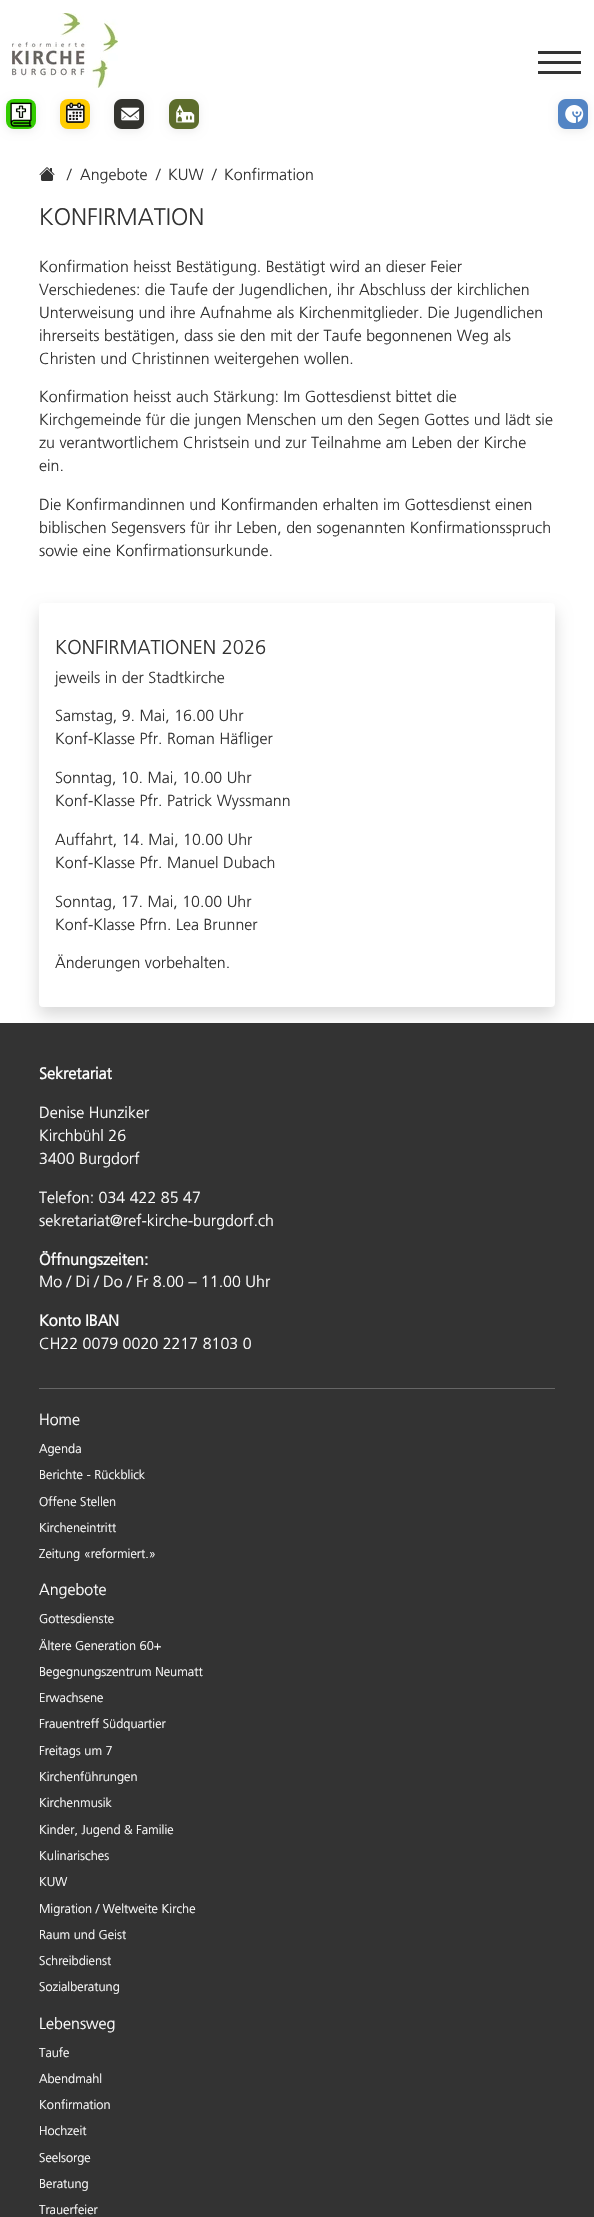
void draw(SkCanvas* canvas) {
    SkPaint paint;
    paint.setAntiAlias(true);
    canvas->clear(0xFFFFFFFF);
    canvas->drawImageRect(SkImages::DeferredFromEncodedData(SkData::MakeFromFileName("img1.png")), SkRect::MakeXYWH(12, 13, 106, 75), SkSamplingOptions());
    paint.setColor(0xFF333333);
    canvas->drawRect(SkRect::MakeXYWH(538, 61, 43, 3), paint);
    canvas->drawRect(SkRect::MakeXYWH(538, 51, 43, 3), paint);
    canvas->drawRect(SkRect::MakeXYWH(538, 71, 43, 3), paint);
    paint.setColor(0x14000000);
    paint.setMaskFilter(SkMaskFilter::MakeBlur(kNormal_SkBlurStyle, 4));
    canvas->drawRoundRect(SkRect::MakeXYWH(6, 101, 30, 30), 8, 8, paint);
    paint.setMaskFilter(nullptr);
    canvas->drawImageRect(SkImages::DeferredFromEncodedData(SkData::MakeFromFileName("img2.png")), SkRect::MakeXYWH(6, 99, 30, 30), SkSamplingOptions());
    paint.setMaskFilter(SkMaskFilter::MakeBlur(kNormal_SkBlurStyle, 4));
    canvas->drawRoundRect(SkRect::MakeXYWH(60, 101, 30, 30), 8, 8, paint);
    paint.setMaskFilter(nullptr);
    canvas->drawImageRect(SkImages::DeferredFromEncodedData(SkData::MakeFromFileName("img3.png")), SkRect::MakeXYWH(60, 99, 30, 30), SkSamplingOptions());
    paint.setMaskFilter(SkMaskFilter::MakeBlur(kNormal_SkBlurStyle, 4));
    canvas->drawRoundRect(SkRect::MakeXYWH(114, 101, 30, 30), 8, 8, paint);
    paint.setMaskFilter(nullptr);
    canvas->drawImageRect(SkImages::DeferredFromEncodedData(SkData::MakeFromFileName("img4.png")), SkRect::MakeXYWH(114, 99, 30, 30), SkSamplingOptions());
    paint.setMaskFilter(SkMaskFilter::MakeBlur(kNormal_SkBlurStyle, 4));
    canvas->drawRoundRect(SkRect::MakeXYWH(169, 101, 30, 30), 8, 8, paint);
    paint.setMaskFilter(nullptr);
    canvas->drawImageRect(SkImages::DeferredFromEncodedData(SkData::MakeFromFileName("img5.png")), SkRect::MakeXYWH(169, 99, 30, 30), SkSamplingOptions());
    paint.setMaskFilter(SkMaskFilter::MakeBlur(kNormal_SkBlurStyle, 4));
    canvas->drawRoundRect(SkRect::MakeXYWH(558, 101, 30, 30), 8, 8, paint);
    paint.setMaskFilter(nullptr);
    canvas->drawImageRect(SkImages::DeferredFromEncodedData(SkData::MakeFromFileName("img6.png")), SkRect::MakeXYWH(558, 99, 30, 30), SkSamplingOptions());
    canvas->drawImageRect(SkImages::DeferredFromEncodedData(SkData::MakeFromFileName("img7.png")), SkRect::MakeXYWH(39, 167, 16, 14), SkSamplingOptions());
    SkFont font1(fontMgr->matchFamilyStyle("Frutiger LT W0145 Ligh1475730", SkFontStyle(300, SkFontStyle::kNormal_Width, SkFontStyle::kUpright_Slant)), 16);
    font1.setSubpixel(true);
    paint.setColor(0xFF333333);
    canvas->drawString("/", 67, 180, font1, paint);
    canvas->drawString("Angebote", 80, 180, font1, paint);
    canvas->drawString("/", 156, 180, font1, paint);
    canvas->drawString("KUW", 168, 180, font1, paint);
    canvas->drawString("/", 212, 180, font1, paint);
    canvas->drawString("Konfirmation", 224, 180, font1, paint);
    SkFont font2(fontMgr->matchFamilyStyle("Frutiger LT W0145 Ligh1475730", SkFontStyle(300, SkFontStyle::kNormal_Width, SkFontStyle::kUpright_Slant)), 24);
    font2.setSubpixel(true);
    canvas->drawString("KONFIRMATION", 39, 225, font2, paint);
    canvas->drawString("Konfirmation heisst Bestätigung. Bestätigt wird an dieser Feier", 39, 272, font1, paint);
    canvas->drawString("Verschiedenes: die Taufe der Jugendlichen, ihr Abschluss der kirchlichen", 39, 295, font1, paint);
    canvas->drawString("Unterweisung und ihre Aufnahme als Kirchenmitglieder. Die Jugendlichen", 39, 318, font1, paint);
    canvas->drawString("ihrerseits bestätigen, dass sie den mit der Taufe begonnenen Weg als", 39, 341, font1, paint);
    canvas->drawString("Christen und Christinnen weitergehen wollen.", 39, 364, font1, paint);
    canvas->drawString("Konfirmation heisst auch Stärkung: Im Gottesdienst bittet die", 39, 402, font1, paint);
    canvas->drawString("Kirchgemeinde für die jungen Menschen um den Segen Gottes und lädt sie", 39, 425, font1, paint);
    canvas->drawString("zu verantwortlichem Christsein und zur Teilnahme am Leben der Kirche", 39, 448, font1, paint);
    canvas->drawString("ein.", 39, 471, font1, paint);
    canvas->drawString("Die Konfirmandinnen und Konfirmanden erhalten im Gottesdienst einen", 39, 510, font1, paint);
    canvas->drawString("biblischen Segensvers für ihr Leben, den sogenannten Konfirmationsspruch", 39, 533, font1, paint);
    canvas->drawString("sowie eine Konfirmationsurkunde.", 39, 556, font1, paint);
    paint.setColor(0x26000000);
    paint.setMaskFilter(SkMaskFilter::MakeBlur(kNormal_SkBlurStyle, 8));
    canvas->drawRoundRect(SkRect::MakeXYWH(39, 611, 516, 404), 4, 4, paint);
    paint.setMaskFilter(nullptr);
    paint.setColor(0xFFFFFFFF);
    canvas->drawRoundRect(SkRect::MakeXYWH(39, 603, 516, 404), 4, 4, paint);
    SkFont font3(fontMgr->matchFamilyStyle("Frutiger LT W0145 Ligh1475730", SkFontStyle(300, SkFontStyle::kNormal_Width, SkFontStyle::kUpright_Slant)), 20);
    font3.setSubpixel(true);
    paint.setColor(0xFF333333);
    canvas->drawString("KONFIRMATIONEN 2026", 55, 654, font3, paint);
    canvas->drawString("jeweils in der Stadtkirche", 55, 683, font1, paint);
    canvas->drawString("Samstag, 9. Mai, 16.00 Uhr", 55, 721, font1, paint);
    canvas->drawString("Konf-Klasse Pfr. Roman Häfliger", 55, 744, font1, paint);
    canvas->drawString("Sonntag, 10. Mai, 10.00 Uhr", 55, 783, font1, paint);
    canvas->drawString("Konf-Klasse Pfr. Patrick Wyssmann", 55, 806, font1, paint);
    canvas->drawString("Auffahrt, 14. Mai, 10.00 Uhr", 55, 845, font1, paint);
    canvas->drawString("Konf-Klasse Pfr. Manuel Dubach", 55, 868, font1, paint);
    canvas->drawString("Sonntag, 17. Mai, 10.00 Uhr", 55, 907, font1, paint);
    canvas->drawString("Konf-Klasse Pfrn. Lea Brunner", 55, 930, font1, paint);
    canvas->drawString("Änderungen vorbehalten.", 55, 968, font1, paint);
    canvas->drawRect(SkRect::MakeXYWH(0, 1023, 594, 1194), paint);
    SkFont font4(fontMgr->matchFamilyStyle("Frutiger LT W0145 Ligh1475730", SkFontStyle::Bold()), 16);
    font4.setSubpixel(true);
    paint.setColor(0xFFFFFFFF);
    canvas->drawString("Sekretariat", 39, 1079, font4, paint);
    canvas->drawString("Denise Hunziker", 39, 1118, font1, paint);
    canvas->drawString("Kirchbühl 26", 39, 1141, font1, paint);
    canvas->drawString("3400 Burgdorf", 39, 1164, font1, paint);
    canvas->drawString("Telefon: 034 422 85 47", 39, 1203, font1, paint);
    canvas->drawString("sekretariat@ref-kirche-burgdorf.ch", 39, 1226, font1, paint);
    canvas->drawString("Öffnungszeiten:", 39, 1265, font4, paint);
    canvas->drawString("Mo / Di / Do / Fr 8.00 – 11.00 Uhr", 39, 1287, font1, paint);
    canvas->drawString("Konto IBAN", 39, 1326, font4, paint);
    canvas->drawString("CH22 0079 0020 2217 8103 0", 39, 1349, font1, paint);
    paint.setColor(0xFF666666);
    canvas->drawRect(SkRect::MakeXYWH(39, 1388, 516, 1), paint);
    paint.setColor(0xFFFFFFFF);
    canvas->drawString("Home", 39, 1425, font1, paint);
    SkFont font5(fontMgr->matchFamilyStyle("Frutiger LT W0145 Ligh1475730", SkFontStyle(300, SkFontStyle::kNormal_Width, SkFontStyle::kUpright_Slant)), 12.75f);
    font5.setSubpixel(true);
    canvas->drawString("Agenda", 39, 1453, font5, paint);
    canvas->drawString("Berichte - Rückblick", 39, 1479, font5, paint);
    canvas->drawString("Offene Stellen", 39, 1506, font5, paint);
    canvas->drawString("Kircheneintritt", 39, 1532, font5, paint);
    canvas->drawString("Zeitung «reformiert.»", 39, 1558, font5, paint);
    canvas->drawString("Angebote", 39, 1595, font1, paint);
    canvas->drawString("Gottesdienste", 39, 1623, font5, paint);
    canvas->drawString("Ältere Generation 60+", 39, 1650, font5, paint);
    canvas->drawString("Begegnungszentrum Neumatt", 39, 1676, font5, paint);
    canvas->drawString("Erwachsene", 39, 1702, font5, paint);
    canvas->drawString("Frauentreff Südquartier", 39, 1728, font5, paint);
    canvas->drawString("Freitags um 7", 39, 1755, font5, paint);
    canvas->drawString("Kirchenführungen", 39, 1781, font5, paint);
    canvas->drawString("Kirchenmusik", 39, 1807, font5, paint);
    canvas->drawString("Kinder, Jugend & Familie", 39, 1834, font5, paint);
    canvas->drawString("Kulinarisches", 39, 1860, font5, paint);
    canvas->drawString("KUW", 39, 1886, font5, paint);
    canvas->drawString("Migration / Weltweite Kirche", 39, 1913, font5, paint);
    canvas->drawString("Raum und Geist", 39, 1939, font5, paint);
    canvas->drawString("Schreibdienst", 39, 1965, font5, paint);
    canvas->drawString("Sozialberatung", 39, 1991, font5, paint);
    canvas->drawString("Lebensweg", 39, 2029, font1, paint);
    canvas->drawString("Taufe", 39, 2057, font5, paint);
    canvas->drawString("Abendmahl", 39, 2083, font5, paint);
    canvas->drawString("Konfirmation", 39, 2109, font5, paint);
    canvas->drawString("Hochzeit", 39, 2135, font5, paint);
    canvas->drawString("Seelsorge", 39, 2162, font5, paint);
    canvas->drawString("Beratung", 39, 2188, font5, paint);
    canvas->drawString("Trauerfeier", 39, 2214, font5, paint);
}
